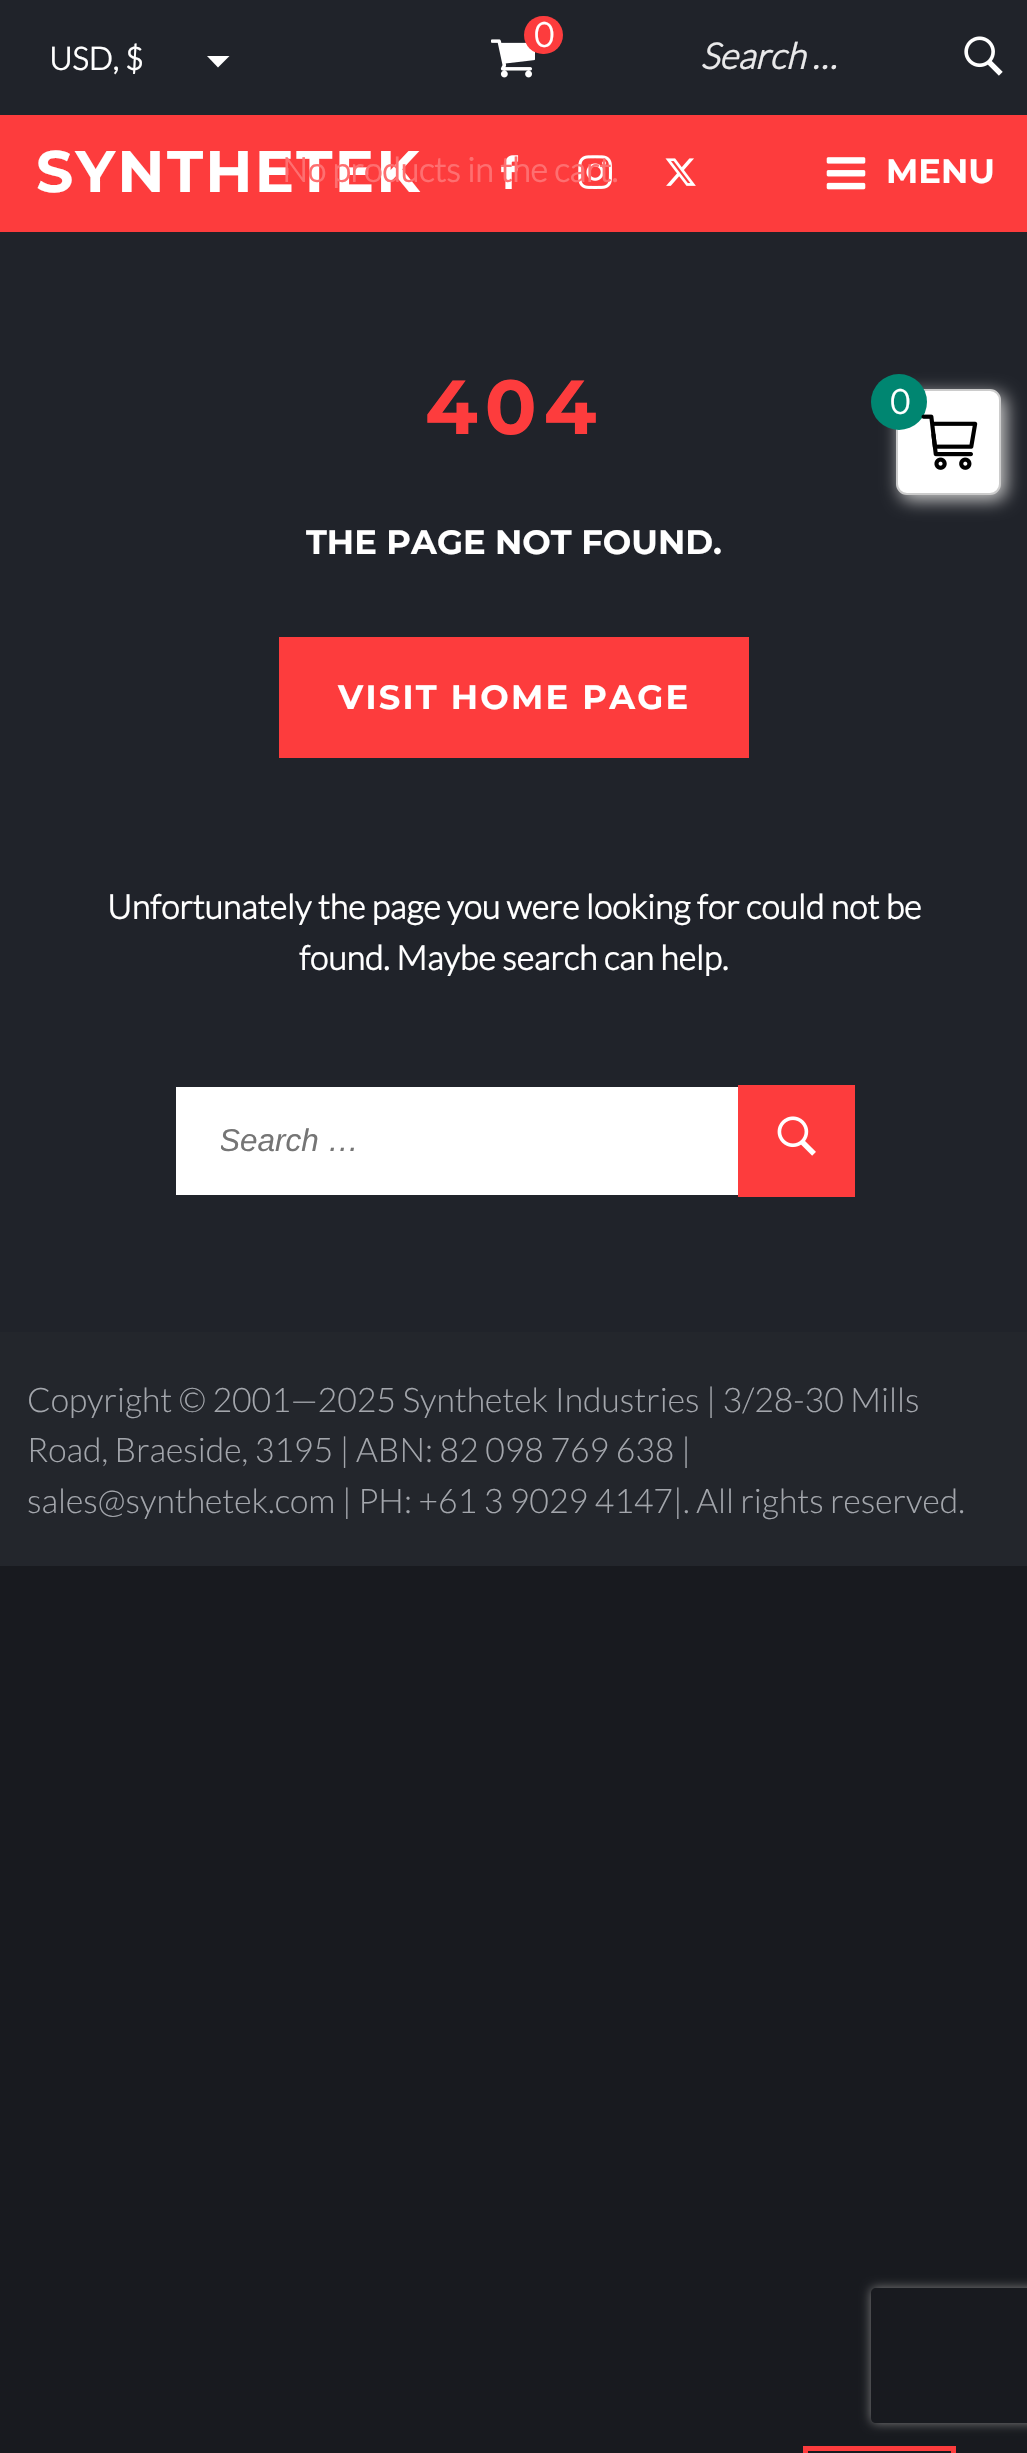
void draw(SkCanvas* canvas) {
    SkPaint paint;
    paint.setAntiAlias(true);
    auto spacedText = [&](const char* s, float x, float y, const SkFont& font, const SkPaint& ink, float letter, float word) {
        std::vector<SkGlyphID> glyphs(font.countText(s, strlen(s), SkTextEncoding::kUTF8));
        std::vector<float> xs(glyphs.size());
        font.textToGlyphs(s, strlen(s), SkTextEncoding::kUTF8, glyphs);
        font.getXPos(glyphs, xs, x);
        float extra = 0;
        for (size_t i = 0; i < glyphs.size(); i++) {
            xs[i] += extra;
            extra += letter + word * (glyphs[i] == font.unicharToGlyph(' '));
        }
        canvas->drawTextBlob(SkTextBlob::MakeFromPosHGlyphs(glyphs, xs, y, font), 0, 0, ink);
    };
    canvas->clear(0xFF181A1F);
    paint.setColor(0xFF20232A);
    canvas->drawRect(SkRect::MakeXYWH(0, 0, 1027, 115), paint);
    SkFont font1(fontMgr->matchFamilyStyle("Lato", SkFontStyle::Bold()), 31.5f);
    font1.setSubpixel(true);
    paint.setColor(0xFFFFFFFF);
    canvas->drawString("USD, $", 49, 70, font1, paint);
    canvas->drawPath(SkPathBuilder().moveTo(207, 56).lineTo(229.5f, 56).lineTo(218, 67.5f).close().detach(), paint);
    canvas->drawImageRect(SkImages::DeferredFromEncodedData(SkData::MakeFromFileName("img1.png")), SkRect::MakeXYWH(491, 39, 44, 39), SkSamplingOptions());
    paint.setColor(0xFFFD3C3D);
    canvas->drawRoundRect(SkRect::MakeXYWH(524, 16, 39, 38), 19, 19, paint);
    SkFont font2(fontMgr->matchFamilyStyle("Lato", SkFontStyle::Bold()), 33.75f);
    font2.setSubpixel(true);
    paint.setColor(0xFFFFFFFF);
    canvas->drawString("0", 534, 47, font2, paint);
    paint.setColor(0xFFFD3C3D);
    canvas->drawRect(SkRect::MakeXYWH(0, 115, 1027, 117), paint);
    SkFont font3(fontMgr->matchFamilyStyle("Montserrat", SkFontStyle(100, SkFontStyle::kNormal_Width, SkFontStyle::kUpright_Slant)), 58.5f);
    font3.setSubpixel(true);
    paint.setColor(0xFFFFFFFF);
    spacedText("SYNTHETEK", 36, 192, font3, paint, 2.25f, 0);
    canvas->drawImageRect(SkImages::DeferredFromEncodedData(SkData::MakeFromFileName("img3.png")), SkRect::MakeXYWH(501, 155, 18, 34), SkSamplingOptions());
    canvas->drawImageRect(SkImages::DeferredFromEncodedData(SkData::MakeFromFileName("img4.png")), SkRect::MakeXYWH(578, 155, 34, 34), SkSamplingOptions());
    paint.setColor(0xFFFE6F70);
    canvas->drawString("No products in the cart.", 282, 182, font2, paint);
    SkFont font4(fontMgr->matchFamilyStyle("Lato", SkFontStyle::BoldItalic()), 36);
    font4.setSubpixel(true);
    paint.setColor(0xFFE9E9EA);
    canvas->drawString("Search …", 700, 69, font4, paint);
    canvas->drawImageRect(SkImages::DeferredFromEncodedData(SkData::MakeFromFileName("img2.png")), SkRect::MakeXYWH(964, 36, 39, 40), SkSamplingOptions());
    canvas->drawImageRect(SkImages::DeferredFromEncodedData(SkData::MakeFromFileName("img5.png")), SkRect::MakeXYWH(665, 158, 31, 28), SkSamplingOptions());
    canvas->drawImageRect(SkImages::DeferredFromEncodedData(SkData::MakeFromFileName("img6.png")), SkRect::MakeXYWH(826, 157, 40, 33), SkSamplingOptions());
    SkFont font5(fontMgr->matchFamilyStyle("Montserrat", SkFontStyle(100, SkFontStyle::kNormal_Width, SkFontStyle::kUpright_Slant)), 33.75f);
    font5.setSubpixel(true);
    paint.setColor(0xFFFFFFFF);
    canvas->drawString("MENU", 886, 183, font5, paint);
    paint.setColor(0xFF20232A);
    canvas->drawRect(SkRect::MakeXYWH(0, 232, 1027, 1100), paint);
    SkFont font6(fontMgr->matchFamilyStyle("Montserrat", SkFontStyle(100, SkFontStyle::kNormal_Width, SkFontStyle::kUpright_Slant)), 76.5f);
    font6.setSubpixel(true);
    paint.setColor(0xFFFD3C3D);
    spacedText("404", 425, 434, font6, paint, 7, 0);
    paint.setColor(0xFFFFFFFF);
    canvas->drawString("THE PAGE NOT FOUND.", 306, 554, font5, paint);
    paint.setColor(0xFFFD3C3D);
    canvas->drawRect(SkRect::MakeXYWH(279, 637, 470, 121), paint);
    paint.setColor(0xFFFFFFFF);
    spacedText("VISIT HOME PAGE", 338, 709, font5, paint, 2.25f, 0);
    canvas->drawString("Unfortunately the page you were looking for could not be", 107, 919, font2, paint);
    canvas->drawString("found. Maybe search can help.", 299, 970, font2, paint);
    canvas->drawRect(SkRect::MakeXYWH(176, 1087, 562, 108), paint);
    canvas->save();
    canvas->clipRect(SkRect::MakeXYWH(221, 1121, 463, 36));
    SkFont font7(fontMgr->matchFamilyStyle("Liberation Sans", SkFontStyle::Italic()), 31.5f);
    font7.setSubpixel(true);
    paint.setColor(0xFF757575);
    canvas->drawString("Search …", 219, 1151, font7, paint);
    canvas->restore();
    paint.setColor(0xFFFD3C3D);
    canvas->drawRect(SkRect::MakeXYWH(738, 1085, 117, 112), paint);
    canvas->drawImageRect(SkImages::DeferredFromEncodedData(SkData::MakeFromFileName("img7.png")), SkRect::MakeXYWH(777, 1116, 39, 40), SkSamplingOptions());
    paint.setColor(0xFFCCCCCC);
    paint.setMaskFilter(SkMaskFilter::MakeBlur(kNormal_SkBlurStyle, 9));
    canvas->drawRoundRect(SkRect::MakeXYWH(900, 394, 106, 106), 11, 11, paint);
    paint.setMaskFilter(nullptr);
    paint.setColor(0xFFFFFFFF);
    canvas->drawRoundRect(SkRect::MakeXYWH(897, 390, 103, 104), 10, 10, paint);
    paint.setStyle(SkPaint::kStroke_Style);
    paint.setStrokeWidth(2);
    paint.setColor(0xFFCCCCCC);
    canvas->drawRoundRect(SkRect::MakeXYWH(897, 390, 103, 104), 10, 10, paint);
    paint.setStyle(SkPaint::kFill_Style);
    paint.setColor(0xFF008671);
    canvas->drawCircle(899, 402, 28, paint);
    paint.setColor(0xFFFFFFFF);
    canvas->drawString("0", 890, 414, font2, paint);
    canvas->drawImageRect(SkImages::DeferredFromEncodedData(SkData::MakeFromFileName("img8.png")), SkRect::MakeXYWH(921, 414, 57, 56), SkSamplingOptions());
    paint.setColor(0xFF23262C);
    canvas->drawRect(SkRect::MakeXYWH(0, 1332, 1027, 234), paint);
    SkFont font8(fontMgr->matchFamilyStyle("Lato", SkFontStyle(300, SkFontStyle::kNormal_Width, SkFontStyle::kUpright_Slant)), 33.75f);
    font8.setSubpixel(true);
    paint.setColor(0xFFA3A6AC);
    canvas->drawString("Copyright © 2001—2025 Synthetek Industries | 3/28-30 Mills", 27, 1412, font8, paint);
    canvas->drawString("Road, Braeside, 3195 | ABN: 82 098 769 638 |", 27, 1462, font8, paint);
    canvas->drawString("sales@synthetek.com | PH: +61 3 9029 4147|. All rights reserved.", 27, 1513, font8, paint);
    paint.setStyle(SkPaint::kStroke_Style);
    paint.setStrokeWidth(5);
    paint.setColor(0xFFFD3C3D);
    canvas->drawRect(SkRect::MakeXYWH(805.5f, 2448.5f, 148, 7), paint);
    canvas->save();
    canvas->clipPath(SkPathBuilder(SkPathFillType::kEvenOdd).moveTo(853, 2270).lineTo(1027, 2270).lineTo(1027, 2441).lineTo(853, 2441).close().moveTo(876, 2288).lineTo(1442, 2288).cubicTo(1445, 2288, 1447, 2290, 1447, 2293).lineTo(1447, 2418).cubicTo(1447, 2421, 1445, 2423, 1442, 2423).lineTo(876, 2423).cubicTo(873, 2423, 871, 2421, 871, 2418).lineTo(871, 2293).cubicTo(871, 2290, 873, 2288, 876, 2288).close().detach(), true);
    paint.setStyle(SkPaint::kFill_Style);
    paint.setColor(0xFF808080);
    paint.setMaskFilter(SkMaskFilter::MakeBlur(kNormal_SkBlurStyle, 5.5f));
    canvas->drawRoundRect(SkRect::MakeXYWH(871, 2288, 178, 135), 5, 5, paint);
    paint.setMaskFilter(nullptr);
    canvas->restore();
}
